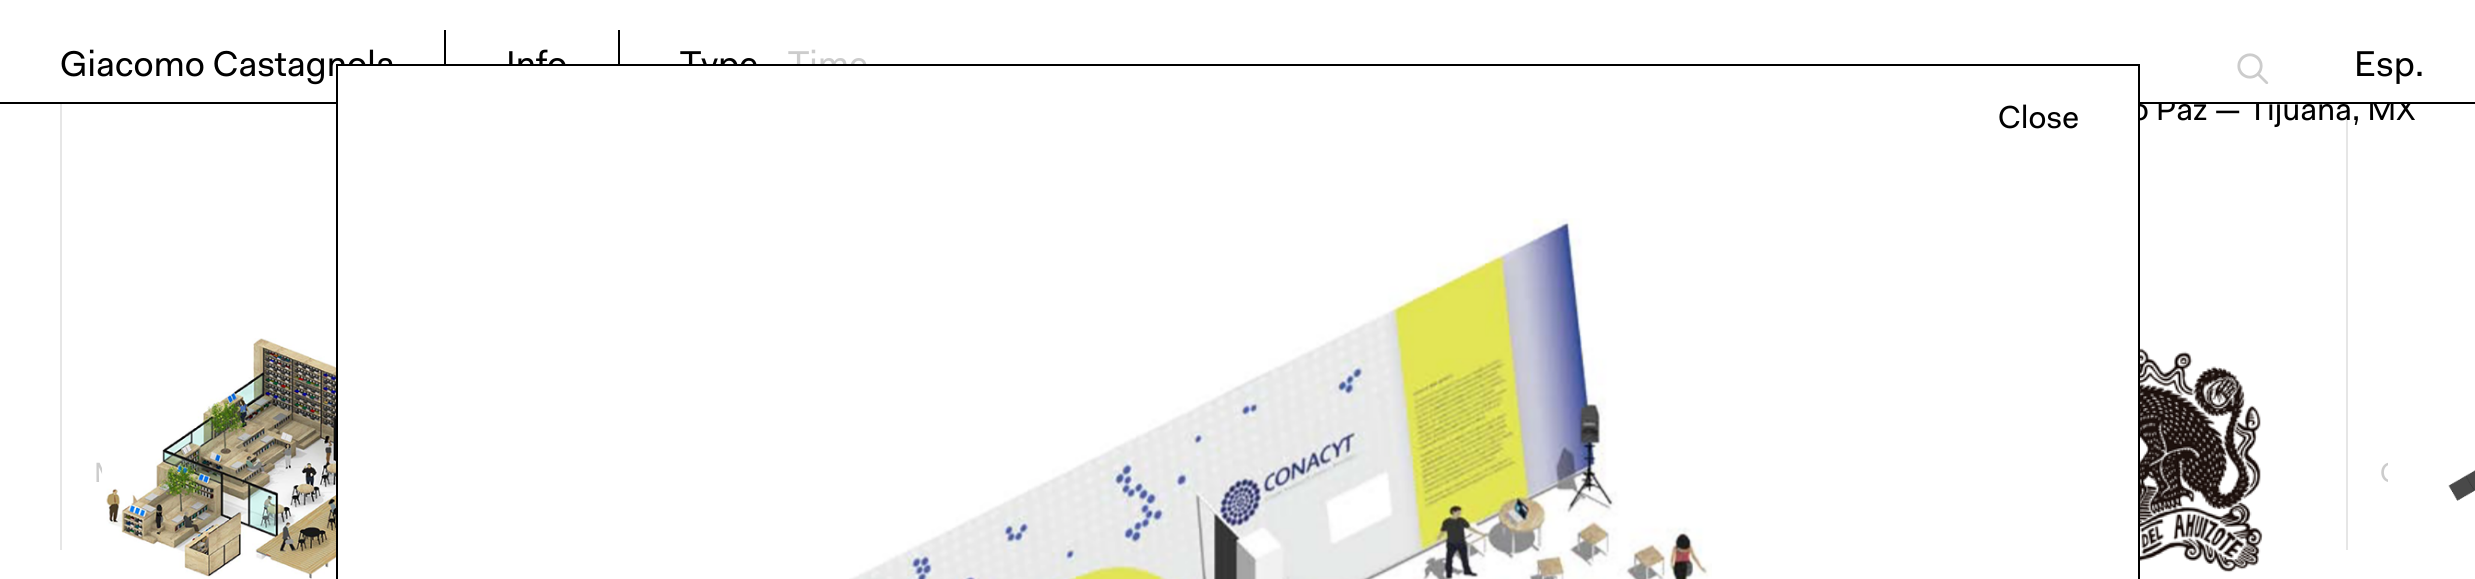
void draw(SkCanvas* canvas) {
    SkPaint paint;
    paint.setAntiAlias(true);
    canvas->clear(0xFFFFFFFF);
    paint.setColor(0xFF000000);
    canvas->drawRect(SkRect::MakeXYWH(0, 102, 2475, 2), paint);
    canvas->drawImageRect(SkImages::DeferredFromEncodedData(SkData::MakeFromFileName("img1.png")), SkRect::MakeXYWH(61, 49, 332, 36), SkSamplingOptions());
    canvas->drawRect(SkRect::MakeXYWH(444, 30, 2, 34), paint);
    canvas->drawImageRect(SkImages::DeferredFromEncodedData(SkData::MakeFromFileName("img2.png")), SkRect::MakeXYWH(509, 49, 57, 15), SkSamplingOptions());
    canvas->drawRect(SkRect::MakeXYWH(618, 30, 2, 34), paint);
    canvas->drawImageRect(SkImages::DeferredFromEncodedData(SkData::MakeFromFileName("img3.png")), SkRect::MakeXYWH(680, 51, 77, 13), SkSamplingOptions());
    canvas->drawImageRect(SkImages::DeferredFromEncodedData(SkData::MakeFromFileName("img4.png")), SkRect::MakeXYWH(788, 49, 79, 15), SkSamplingOptions());
    canvas->drawImageRect(SkImages::DeferredFromEncodedData(SkData::MakeFromFileName("img5.png")), SkRect::MakeXYWH(2237, 53, 32, 31), SkSamplingOptions());
    canvas->drawImageRect(SkImages::DeferredFromEncodedData(SkData::MakeFromFileName("img6.png")), SkRect::MakeXYWH(2357, 51, 65, 33), SkSamplingOptions());
    paint.setColor(0xFFFFFFFF);
    canvas->drawRect(SkRect::MakeXYWH(338, 66, 1800, 38), paint);
    paint.setStyle(SkPaint::kStroke_Style);
    paint.setStrokeWidth(2);
    paint.setColor(0xFF000000);
    canvas->drawRect(SkRect::MakeXYWH(337, 65, 1802, 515), paint);
    canvas->drawImageRect(SkImages::DeferredFromEncodedData(SkData::MakeFromFileName("img7.png")), SkRect::MakeXYWH(1999, 104, 79, 25), SkSamplingOptions());
    canvas->drawImageRect(SkImages::DeferredFromEncodedData(SkData::MakeFromFileName("img8.png")), SkRect::MakeXYWH(849, 218, 863, 361), SkSamplingOptions());
    paint.setStyle(SkPaint::kFill_Style);
    paint.setColor(0xFFE6E6E6);
    canvas->drawRect(SkRect::MakeXYWH(60, 104, 2, 446), paint);
    canvas->drawImageRect(SkImages::DeferredFromEncodedData(SkData::MakeFromFileName("img9.png")), SkRect::MakeXYWH(96, 462, 7, 20), SkSamplingOptions());
    canvas->drawImageRect(SkImages::DeferredFromEncodedData(SkData::MakeFromFileName("img10.png")), SkRect::MakeXYWH(102, 338, 234, 241), SkSamplingOptions());
    canvas->drawImageRect(SkImages::DeferredFromEncodedData(SkData::MakeFromFileName("img11.png")), SkRect::MakeXYWH(2140, 348, 123, 225), SkSamplingOptions());
    canvas->drawRect(SkRect::MakeXYWH(2346, 104, 2, 446), paint);
    canvas->drawImageRect(SkImages::DeferredFromEncodedData(SkData::MakeFromFileName("img12.png")), SkRect::MakeXYWH(2381, 462, 7, 20), SkSamplingOptions());
    canvas->drawImageRect(SkImages::DeferredFromEncodedData(SkData::MakeFromFileName("img13.png")), SkRect::MakeXYWH(2388, 462, 87, 39), SkSamplingOptions());
    canvas->drawImageRect(SkImages::DeferredFromEncodedData(SkData::MakeFromFileName("img14.png")), SkRect::MakeXYWH(2140, 104, 275, 24), SkSamplingOptions());
}
